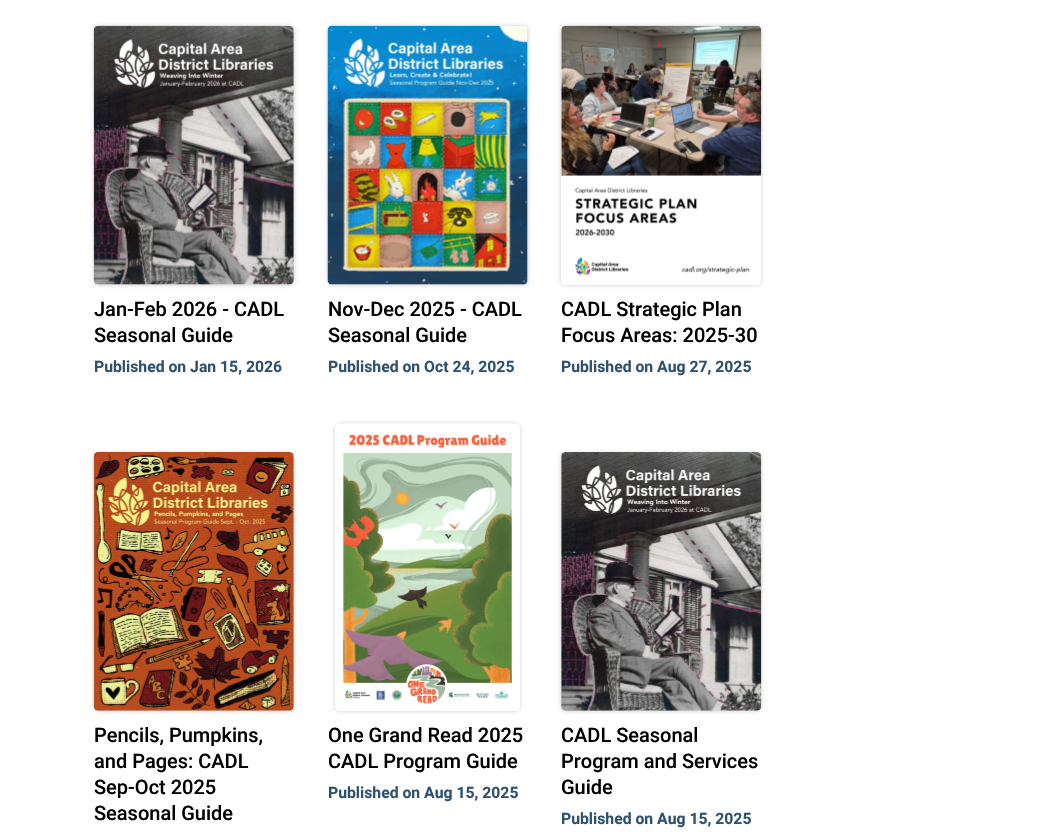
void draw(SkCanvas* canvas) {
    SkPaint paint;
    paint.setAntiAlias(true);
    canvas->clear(0xFFFFFFFF);
    paint.setColor(0x33000000);
    paint.setMaskFilter(SkMaskFilter::MakeBlur(kNormal_SkBlurStyle, 2));
    canvas->drawRoundRect(SkRect::MakeXYWH(94, 26, 200, 259), 5, 5, paint);
    paint.setMaskFilter(nullptr);
    canvas->drawImageRect(SkImages::DeferredFromEncodedData(SkData::MakeFromFileName("img1.png")), SkRect::MakeXYWH(93, 25, 201, 260), SkSamplingOptions());
    SkFont font1(fontMgr->matchFamilyStyle("Roboto", SkFontStyle(500, SkFontStyle::kNormal_Width, SkFontStyle::kUpright_Slant)), 20);
    font1.setSubpixel(true);
    paint.setColor(0xFF000000);
    canvas->drawString("Jan-Feb 2026 - CADL", 94, 316, font1, paint);
    canvas->drawString("Seasonal Guide", 94, 342, font1, paint);
    SkFont font2(fontMgr->matchFamilyStyle("Roboto", SkFontStyle::Bold()), 15.75f);
    font2.setSubpixel(true);
    paint.setColor(0xFF2D516E);
    canvas->drawString("Published on Jan 15, 2026", 94, 372, font2, paint);
    paint.setColor(0x33000000);
    paint.setMaskFilter(SkMaskFilter::MakeBlur(kNormal_SkBlurStyle, 2));
    canvas->drawRoundRect(SkRect::MakeXYWH(328, 26, 200, 259), 5, 5, paint);
    paint.setMaskFilter(nullptr);
    canvas->drawImageRect(SkImages::DeferredFromEncodedData(SkData::MakeFromFileName("img2.png")), SkRect::MakeXYWH(327, 25, 201, 260), SkSamplingOptions());
    paint.setColor(0xFF000000);
    canvas->drawString("Nov-Dec 2025 - CADL", 328, 316, font1, paint);
    canvas->drawString("Seasonal Guide", 328, 342, font1, paint);
    paint.setColor(0xFF2D516E);
    canvas->drawString("Published on Oct 24, 2025", 328, 372, font2, paint);
    canvas->save();
    canvas->clipPath(SkPathBuilder(SkPathFillType::kEvenOdd).moveTo(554, 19).lineTo(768, 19).lineTo(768, 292).lineTo(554, 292).close().moveTo(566, 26).lineTo(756, 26).cubicTo(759, 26, 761, 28, 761, 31).lineTo(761, 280).cubicTo(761, 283, 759, 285, 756, 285).lineTo(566, 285).cubicTo(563, 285, 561, 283, 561, 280).lineTo(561, 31).cubicTo(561, 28, 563, 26, 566, 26).close().detach(), true);
    paint.setColor(0x33000000);
    paint.setMaskFilter(SkMaskFilter::MakeBlur(kNormal_SkBlurStyle, 2));
    canvas->drawRoundRect(SkRect::MakeXYWH(561, 26, 200, 259), 5, 5, paint);
    paint.setMaskFilter(nullptr);
    canvas->restore();
    canvas->drawImageRect(SkImages::DeferredFromEncodedData(SkData::MakeFromFileName("img3.png")), SkRect::MakeXYWH(561, 25, 201, 255), SkSamplingOptions());
    paint.setColor(0xFF000000);
    canvas->drawString("CADL Strategic Plan", 561, 316, font1, paint);
    canvas->drawString("Focus Areas: 2025-30", 561, 342, font1, paint);
    paint.setColor(0xFF2D516E);
    canvas->drawString("Published on Aug 27, 2025", 561, 372, font2, paint);
    paint.setColor(0x33000000);
    paint.setMaskFilter(SkMaskFilter::MakeBlur(kNormal_SkBlurStyle, 2));
    canvas->drawRoundRect(SkRect::MakeXYWH(94, 453, 200, 258), 5, 5, paint);
    paint.setMaskFilter(nullptr);
    canvas->drawImageRect(SkImages::DeferredFromEncodedData(SkData::MakeFromFileName("img4.png")), SkRect::MakeXYWH(93, 452, 201, 259), SkSamplingOptions());
    paint.setColor(0xFF000000);
    canvas->drawString("Pencils, Pumpkins,", 94, 742, font1, paint);
    canvas->drawString("and Pages: CADL", 94, 768, font1, paint);
    canvas->drawString("Sep-Oct 2025", 94, 794, font1, paint);
    canvas->drawString("Seasonal Guide", 94, 820, font1, paint);
    canvas->save();
    canvas->clipPath(SkPathBuilder(SkPathFillType::kEvenOdd).moveTo(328, 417).lineTo(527, 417).lineTo(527, 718).lineTo(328, 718).close().moveTo(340, 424).lineTo(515, 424).cubicTo(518, 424, 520, 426, 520, 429).lineTo(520, 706).cubicTo(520, 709, 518, 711, 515, 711).lineTo(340, 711).cubicTo(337, 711, 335, 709, 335, 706).lineTo(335, 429).cubicTo(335, 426, 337, 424, 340, 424).close().detach(), true);
    paint.setColor(0x33000000);
    paint.setMaskFilter(SkMaskFilter::MakeBlur(kNormal_SkBlurStyle, 2));
    canvas->drawRoundRect(SkRect::MakeXYWH(335, 424, 185, 287), 5, 5, paint);
    paint.setMaskFilter(nullptr);
    canvas->restore();
    canvas->drawImageRect(SkImages::DeferredFromEncodedData(SkData::MakeFromFileName("img5.png")), SkRect::MakeXYWH(335, 423, 185, 282), SkSamplingOptions());
    paint.setColor(0xFF000000);
    canvas->drawString("One Grand Read 2025", 328, 742, font1, paint);
    canvas->drawString("CADL Program Guide", 328, 768, font1, paint);
    paint.setColor(0xFF2D516E);
    canvas->drawString("Published on Aug 15, 2025", 328, 798, font2, paint);
    paint.setColor(0x33000000);
    paint.setMaskFilter(SkMaskFilter::MakeBlur(kNormal_SkBlurStyle, 2));
    canvas->drawRoundRect(SkRect::MakeXYWH(561, 453, 200, 258), 5, 5, paint);
    paint.setMaskFilter(nullptr);
    canvas->drawImageRect(SkImages::DeferredFromEncodedData(SkData::MakeFromFileName("img6.png")), SkRect::MakeXYWH(561, 452, 201, 259), SkSamplingOptions());
    paint.setColor(0xFF000000);
    canvas->drawString("CADL Seasonal", 561, 742, font1, paint);
    canvas->drawString("Program and Services", 561, 768, font1, paint);
    canvas->drawString("Guide", 561, 794, font1, paint);
    paint.setColor(0xFF2D516E);
    canvas->drawString("Published on Aug 15, 2025", 561, 824, font2, paint);
}
